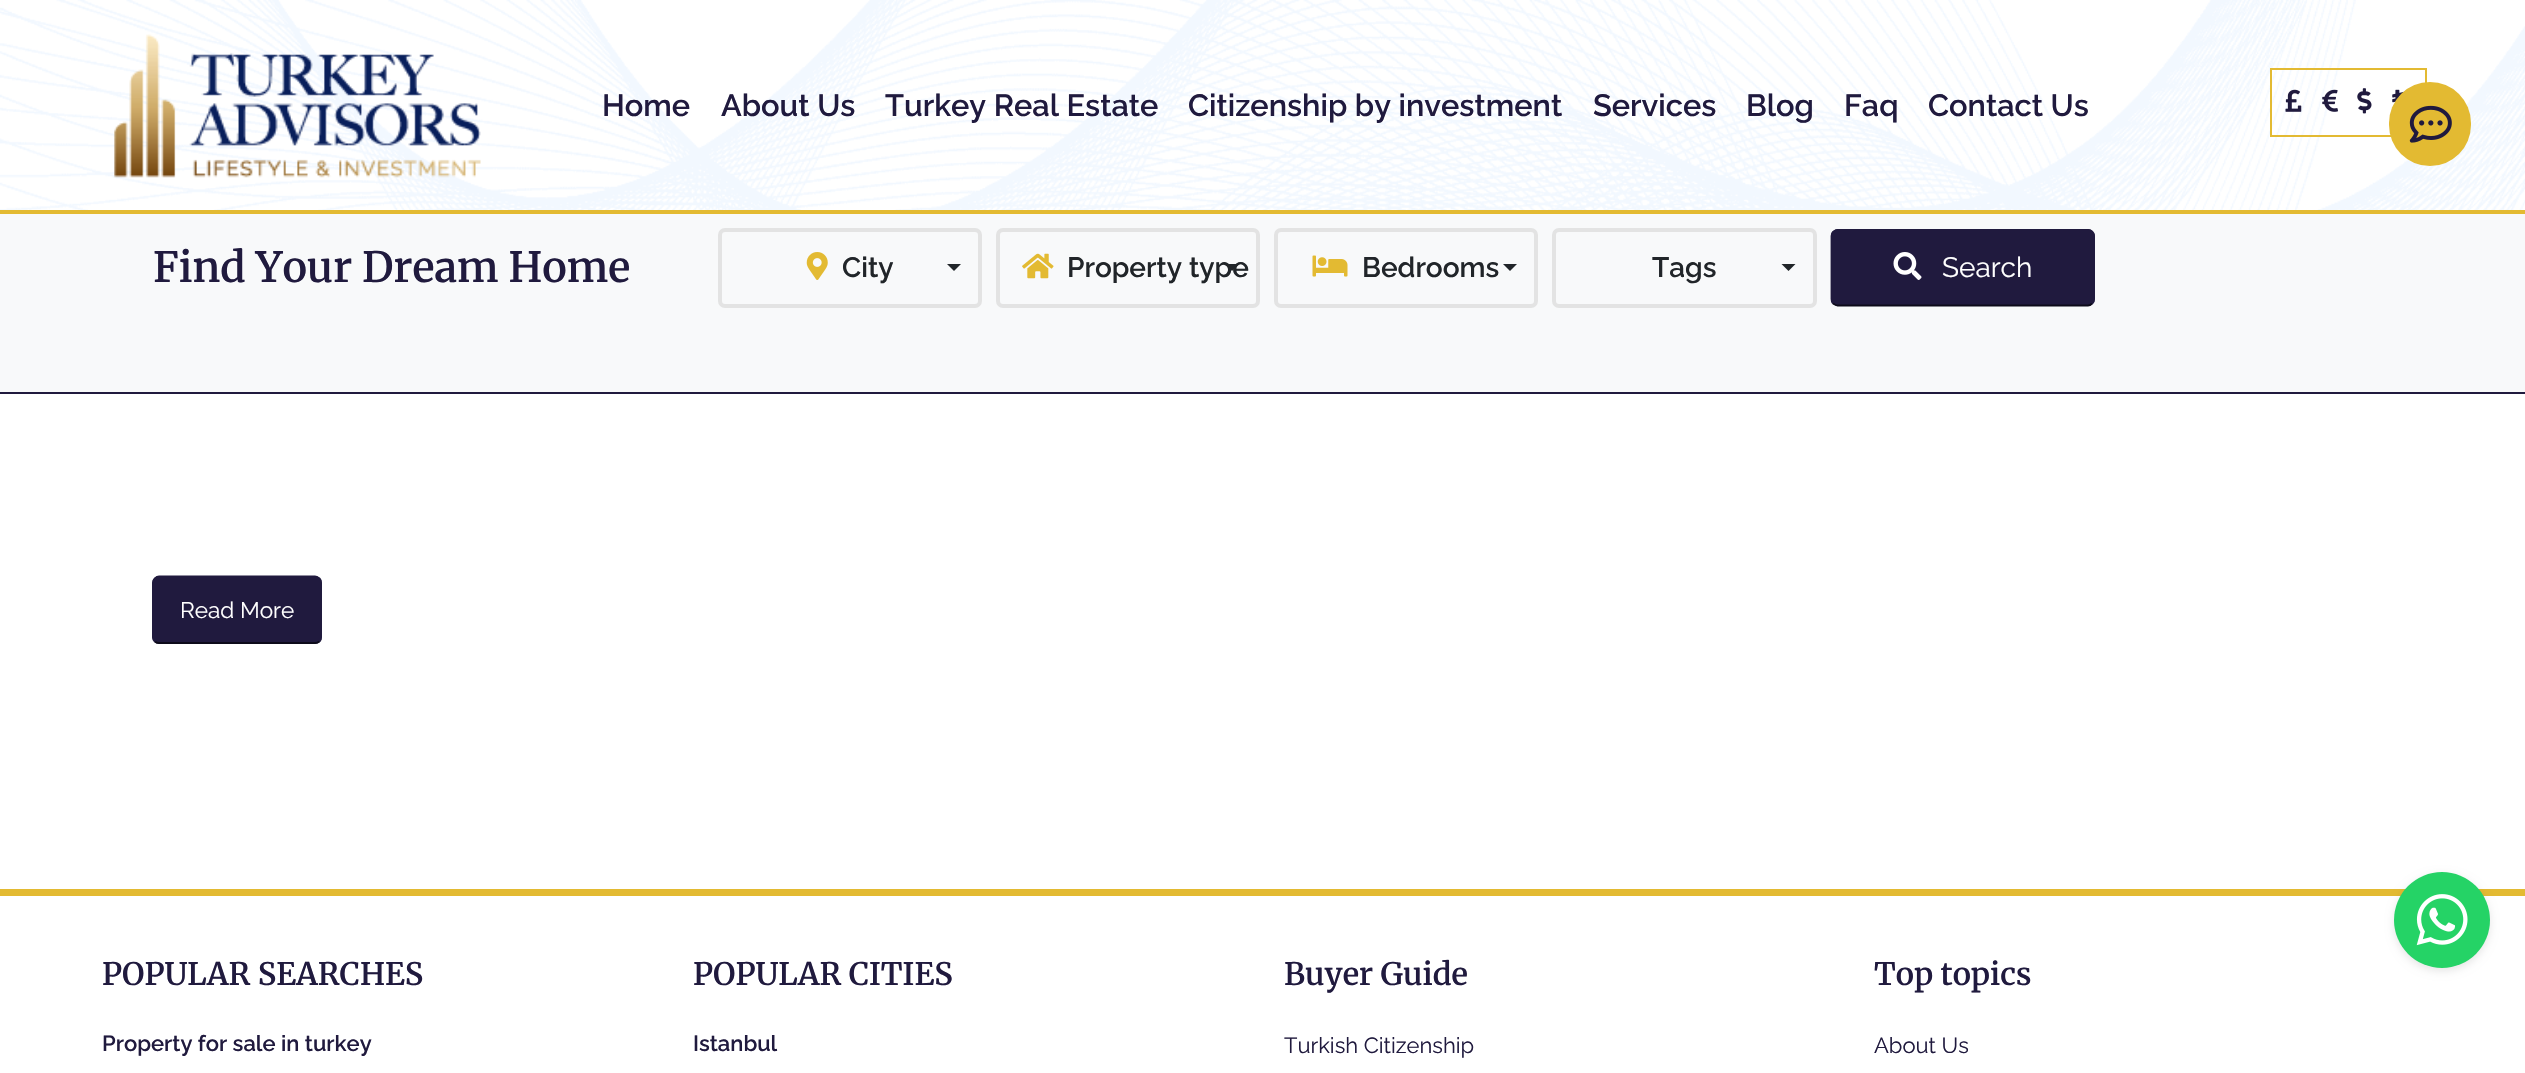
void draw(SkCanvas* canvas) {
    SkPaint paint;
    paint.setAntiAlias(true);
    canvas->clear(0xFFFFFFFF);
    canvas->drawImageRect(SkImages::DeferredFromEncodedData(SkData::MakeFromFileName("img1.png")), SkRect::MakeXYWH(0, 0, 2525, 210), SkSamplingOptions());
    paint.setColor(0xFFE3BA32);
    canvas->drawRect(SkRect::MakeXYWH(0, 210, 2525, 4), paint);
    canvas->drawImageRect(SkImages::DeferredFromEncodedData(SkData::MakeFromFileName("img2.png")), SkRect::MakeXYWH(114, 34, 367, 144), SkSamplingOptions());
    SkFont font1(fontMgr->matchFamilyStyle("Raleway", SkFontStyle(600, SkFontStyle::kNormal_Width, SkFontStyle::kUpright_Slant)), 30.75f);
    font1.setSubpixel(true);
    paint.setColor(0xFF201A3E);
    canvas->drawString("Home", 602, 116, font1, paint);
    canvas->drawString("About Us", 721, 116, font1, paint);
    canvas->drawString("Turkey Real Estate", 885, 116, font1, paint);
    canvas->drawString("Citizenship by investment", 1188, 116, font1, paint);
    canvas->drawString("Services", 1593, 116, font1, paint);
    canvas->drawString("Blog", 1746, 116, font1, paint);
    canvas->drawString("Faq", 1844, 116, font1, paint);
    canvas->drawString("Contact Us", 1928, 116, font1, paint);
    paint.setStyle(SkPaint::kStroke_Style);
    paint.setStrokeWidth(2);
    paint.setColor(0xFFE3BA32);
    canvas->drawRect(SkRect::MakeXYWH(2271, 69, 155, 67), paint);
    canvas->drawImageRect(SkImages::DeferredFromEncodedData(SkData::MakeFromFileName("img3.png")), SkRect::MakeXYWH(2285, 89, 17, 23), SkSamplingOptions());
    canvas->drawImageRect(SkImages::DeferredFromEncodedData(SkData::MakeFromFileName("img4.png")), SkRect::MakeXYWH(2322, 89, 16, 23), SkSamplingOptions());
    canvas->drawImageRect(SkImages::DeferredFromEncodedData(SkData::MakeFromFileName("img5.png")), SkRect::MakeXYWH(2357, 88, 15, 26), SkSamplingOptions());
    canvas->drawImageRect(SkImages::DeferredFromEncodedData(SkData::MakeFromFileName("img6.png")), SkRect::MakeXYWH(2392, 89, 13, 14), SkSamplingOptions());
    paint.setStyle(SkPaint::kFill_Style);
    canvas->drawRoundRect(SkRect::MakeXYWH(2389, 82, 82, 84), 41, 41, paint);
    canvas->drawImageRect(SkImages::DeferredFromEncodedData(SkData::MakeFromFileName("img7.png")), SkRect::MakeXYWH(2409, 105, 43, 38), SkSamplingOptions());
    paint.setColor(0xFFF8F9FA);
    canvas->drawRect(SkRect::MakeXYWH(0, 214, 2525, 178), paint);
    SkFont font2(fontMgr->matchFamilyStyle("Merriweather", SkFontStyle(600, SkFontStyle::kNormal_Width, SkFontStyle::kUpright_Slant)), 41.6f);
    font2.setSubpixel(true);
    paint.setColor(0xFF201A3E);
    canvas->drawString("Find Your Dream Home", 153, 282, font2, paint);
    paint.setStyle(SkPaint::kStroke_Style);
    paint.setStrokeWidth(4);
    paint.setColor(0xFFE3E3E3);
    canvas->drawRoundRect(SkRect::MakeXYWH(720, 230, 260, 76), 5, 5, paint);
    canvas->drawImageRect(SkImages::DeferredFromEncodedData(SkData::MakeFromFileName("img8.png")), SkRect::MakeXYWH(806, 252, 22, 28), SkSamplingOptions());
    SkFont font3(fontMgr->matchFamilyStyle("Raleway", SkFontStyle(600, SkFontStyle::kNormal_Width, SkFontStyle::kUpright_Slant)), 28);
    font3.setSubpixel(true);
    paint.setStyle(SkPaint::kFill_Style);
    paint.setColor(0xFF212529);
    canvas->drawString("City", 842, 277, font3, paint);
    canvas->drawPath(SkPathBuilder().moveTo(947, 264).lineTo(961, 264).lineTo(954, 271).close().detach(), paint);
    paint.setStyle(SkPaint::kStroke_Style);
    paint.setColor(0xFFE3E3E3);
    canvas->drawRoundRect(SkRect::MakeXYWH(998, 230, 260, 76), 5, 5, paint);
    canvas->drawImageRect(SkImages::DeferredFromEncodedData(SkData::MakeFromFileName("img9.png")), SkRect::MakeXYWH(1022, 253, 32, 26), SkSamplingOptions());
    paint.setStyle(SkPaint::kFill_Style);
    paint.setColor(0xFF212529);
    canvas->drawString("Property type", 1067, 277, font3, paint);
    canvas->drawPath(SkPathBuilder().moveTo(1225, 264).lineTo(1239, 264).lineTo(1232, 271).close().detach(), paint);
    paint.setStyle(SkPaint::kStroke_Style);
    paint.setColor(0xFFE3E3E3);
    canvas->drawRoundRect(SkRect::MakeXYWH(1276, 230, 260, 76), 5, 5, paint);
    canvas->drawImageRect(SkImages::DeferredFromEncodedData(SkData::MakeFromFileName("img10.png")), SkRect::MakeXYWH(1312, 255, 36, 22), SkSamplingOptions());
    paint.setStyle(SkPaint::kFill_Style);
    paint.setColor(0xFF212529);
    canvas->drawString("Bedrooms", 1362, 277, font3, paint);
    canvas->drawPath(SkPathBuilder().moveTo(1503, 264).lineTo(1517, 264).lineTo(1510, 271).close().detach(), paint);
    paint.setStyle(SkPaint::kStroke_Style);
    paint.setColor(0xFFE3E3E3);
    canvas->drawRoundRect(SkRect::MakeXYWH(1554, 230, 261, 76), 5, 5, paint);
    paint.setStyle(SkPaint::kFill_Style);
    paint.setColor(0xFF212529);
    canvas->drawString("Tags", 1652, 277, font3, paint);
    canvas->drawPath(SkPathBuilder().moveTo(1781.5f, 264).lineTo(1795.5f, 264).lineTo(1788.5f, 271).close().detach(), paint);
    paint.setColor(0xFF201A3E);
    canvas->drawRoundRect(SkRect::MakeXYWH(1831, 229, 264, 77), 7, 7, paint);
    paint.setStyle(SkPaint::kStroke_Style);
    paint.setStrokeWidth(1.8f);
    paint.setColor(0xFF0D0B1A);
    canvas->drawPath(SkPathBuilder().moveTo(2092, 303.5f).cubicTo(2091, 304.5f, 2089.5f, 305.5f, 2088, 305.5f).lineTo(1837.5f, 305.5f).cubicTo(1836, 305.5f, 1834.5f, 304.5f, 1833, 303.5f).detach(), paint);
    paint.setColor(0xFF201A3E);
    canvas->drawPath(SkPathBuilder().moveTo(1833, 303.5f).cubicTo(1832, 302.5f, 1831.5f, 301, 1831.5f, 299).lineTo(1831.5f, 236).cubicTo(1831.5f, 234.5f, 1832, 233, 1833, 232).cubicTo(1834.5f, 231, 1836, 230, 1837.5f, 230).lineTo(2088, 230).cubicTo(2089.5f, 230, 2091, 231, 2092, 232).cubicTo(2093, 233, 2094, 234.5f, 2094, 236).lineTo(2094, 299).cubicTo(2094, 301, 2093, 302.5f, 2092, 303.5f).detach(), paint);
    canvas->drawImageRect(SkImages::DeferredFromEncodedData(SkData::MakeFromFileName("img11.png")), SkRect::MakeXYWH(1893, 252, 29, 28), SkSamplingOptions());
    SkFont font4(fontMgr->matchFamilyStyle("Raleway", SkFontStyle::Normal()), 28);
    font4.setSubpixel(true);
    paint.setStyle(SkPaint::kFill_Style);
    paint.setColor(0xFFFFFFFF);
    canvas->drawString("Search", 1942, 277, font4, paint);
    paint.setColor(0xFF201A3E);
    canvas->drawRect(SkRect::MakeXYWH(0, 392, 2525, 2), paint);
    canvas->drawRoundRect(SkRect::MakeXYWH(152, 576, 170, 68), 7, 7, paint);
    paint.setStyle(SkPaint::kStroke_Style);
    paint.setColor(0xFF0D0B1A);
    canvas->drawPath(SkPathBuilder().moveTo(319.5f, 641.5f).cubicTo(318, 642.5f, 316.5f, 643, 315, 643).lineTo(159, 643).cubicTo(157.5f, 643, 156, 642.5f, 155, 641.5f).detach(), paint);
    paint.setColor(0xFF201A3E);
    canvas->drawPath(SkPathBuilder().moveTo(155, 641.5f).cubicTo(154, 640, 153, 638.5f, 153, 637).lineTo(153, 583).cubicTo(153, 581, 154, 579.5f, 155, 578.5f).cubicTo(156, 577.5f, 157.5f, 576.5f, 159, 576.5f).lineTo(315, 576.5f).cubicTo(316.5f, 576.5f, 318, 577.5f, 319.5f, 578.5f).cubicTo(320.5f, 579.5f, 321, 581, 321, 583).lineTo(321, 637).cubicTo(321, 638.5f, 320.5f, 640, 319.5f, 641.5f).detach(), paint);
    SkFont font5(fontMgr->matchFamilyStyle("Raleway", SkFontStyle::Normal()), 22.5f);
    font5.setSubpixel(true);
    paint.setStyle(SkPaint::kFill_Style);
    paint.setColor(0xFFFFFFFF);
    canvas->drawString("Read More", 180, 618, font5, paint);
    paint.setColor(0xFFE3BA32);
    canvas->drawRect(SkRect::MakeXYWH(0, 889, 2525, 7), paint);
    paint.setColor(0x1A000000);
    paint.setMaskFilter(SkMaskFilter::MakeBlur(kNormal_SkBlurStyle, 4.5f));
    canvas->drawRoundRect(SkRect::MakeXYWH(2394, 875, 96, 96), 48, 48, paint);
    paint.setMaskFilter(nullptr);
    paint.setColor(0xFF25D366);
    canvas->drawCircle(2442, 920, 48, paint);
    canvas->drawImageRect(SkImages::DeferredFromEncodedData(SkData::MakeFromFileName("img12.png")), SkRect::MakeXYWH(2416, 894, 52, 52), SkSamplingOptions());
    SkFont font6(fontMgr->matchFamilyStyle("Merriweather", SkFontStyle(600, SkFontStyle::kNormal_Width, SkFontStyle::kUpright_Slant)), 30.9f);
    font6.setSubpixel(true);
    paint.setColor(0xFF201A3E);
    canvas->drawString("POPULAR SEARCHES", 102, 985, font6, paint);
    SkFont font7(fontMgr->matchFamilyStyle("Raleway", SkFontStyle(600, SkFontStyle::kNormal_Width, SkFontStyle::kUpright_Slant)), 22);
    font7.setSubpixel(true);
    canvas->drawString("Property for sale in turkey", 102, 1051, font7, paint);
    canvas->drawString("POPULAR CITIES", 693, 985, font6, paint);
    canvas->drawString("Istanbul", 693, 1051, font7, paint);
    canvas->drawString("Buyer Guide", 1284, 985, font6, paint);
    SkFont font8(fontMgr->matchFamilyStyle("Raleway", SkFontStyle::Normal()), 22);
    font8.setSubpixel(true);
    canvas->drawString("Turkish Citizenship", 1284, 1053, font8, paint);
    canvas->drawString("Top topics", 1874, 985, font6, paint);
    canvas->drawString("About Us", 1874, 1053, font8, paint);
}
